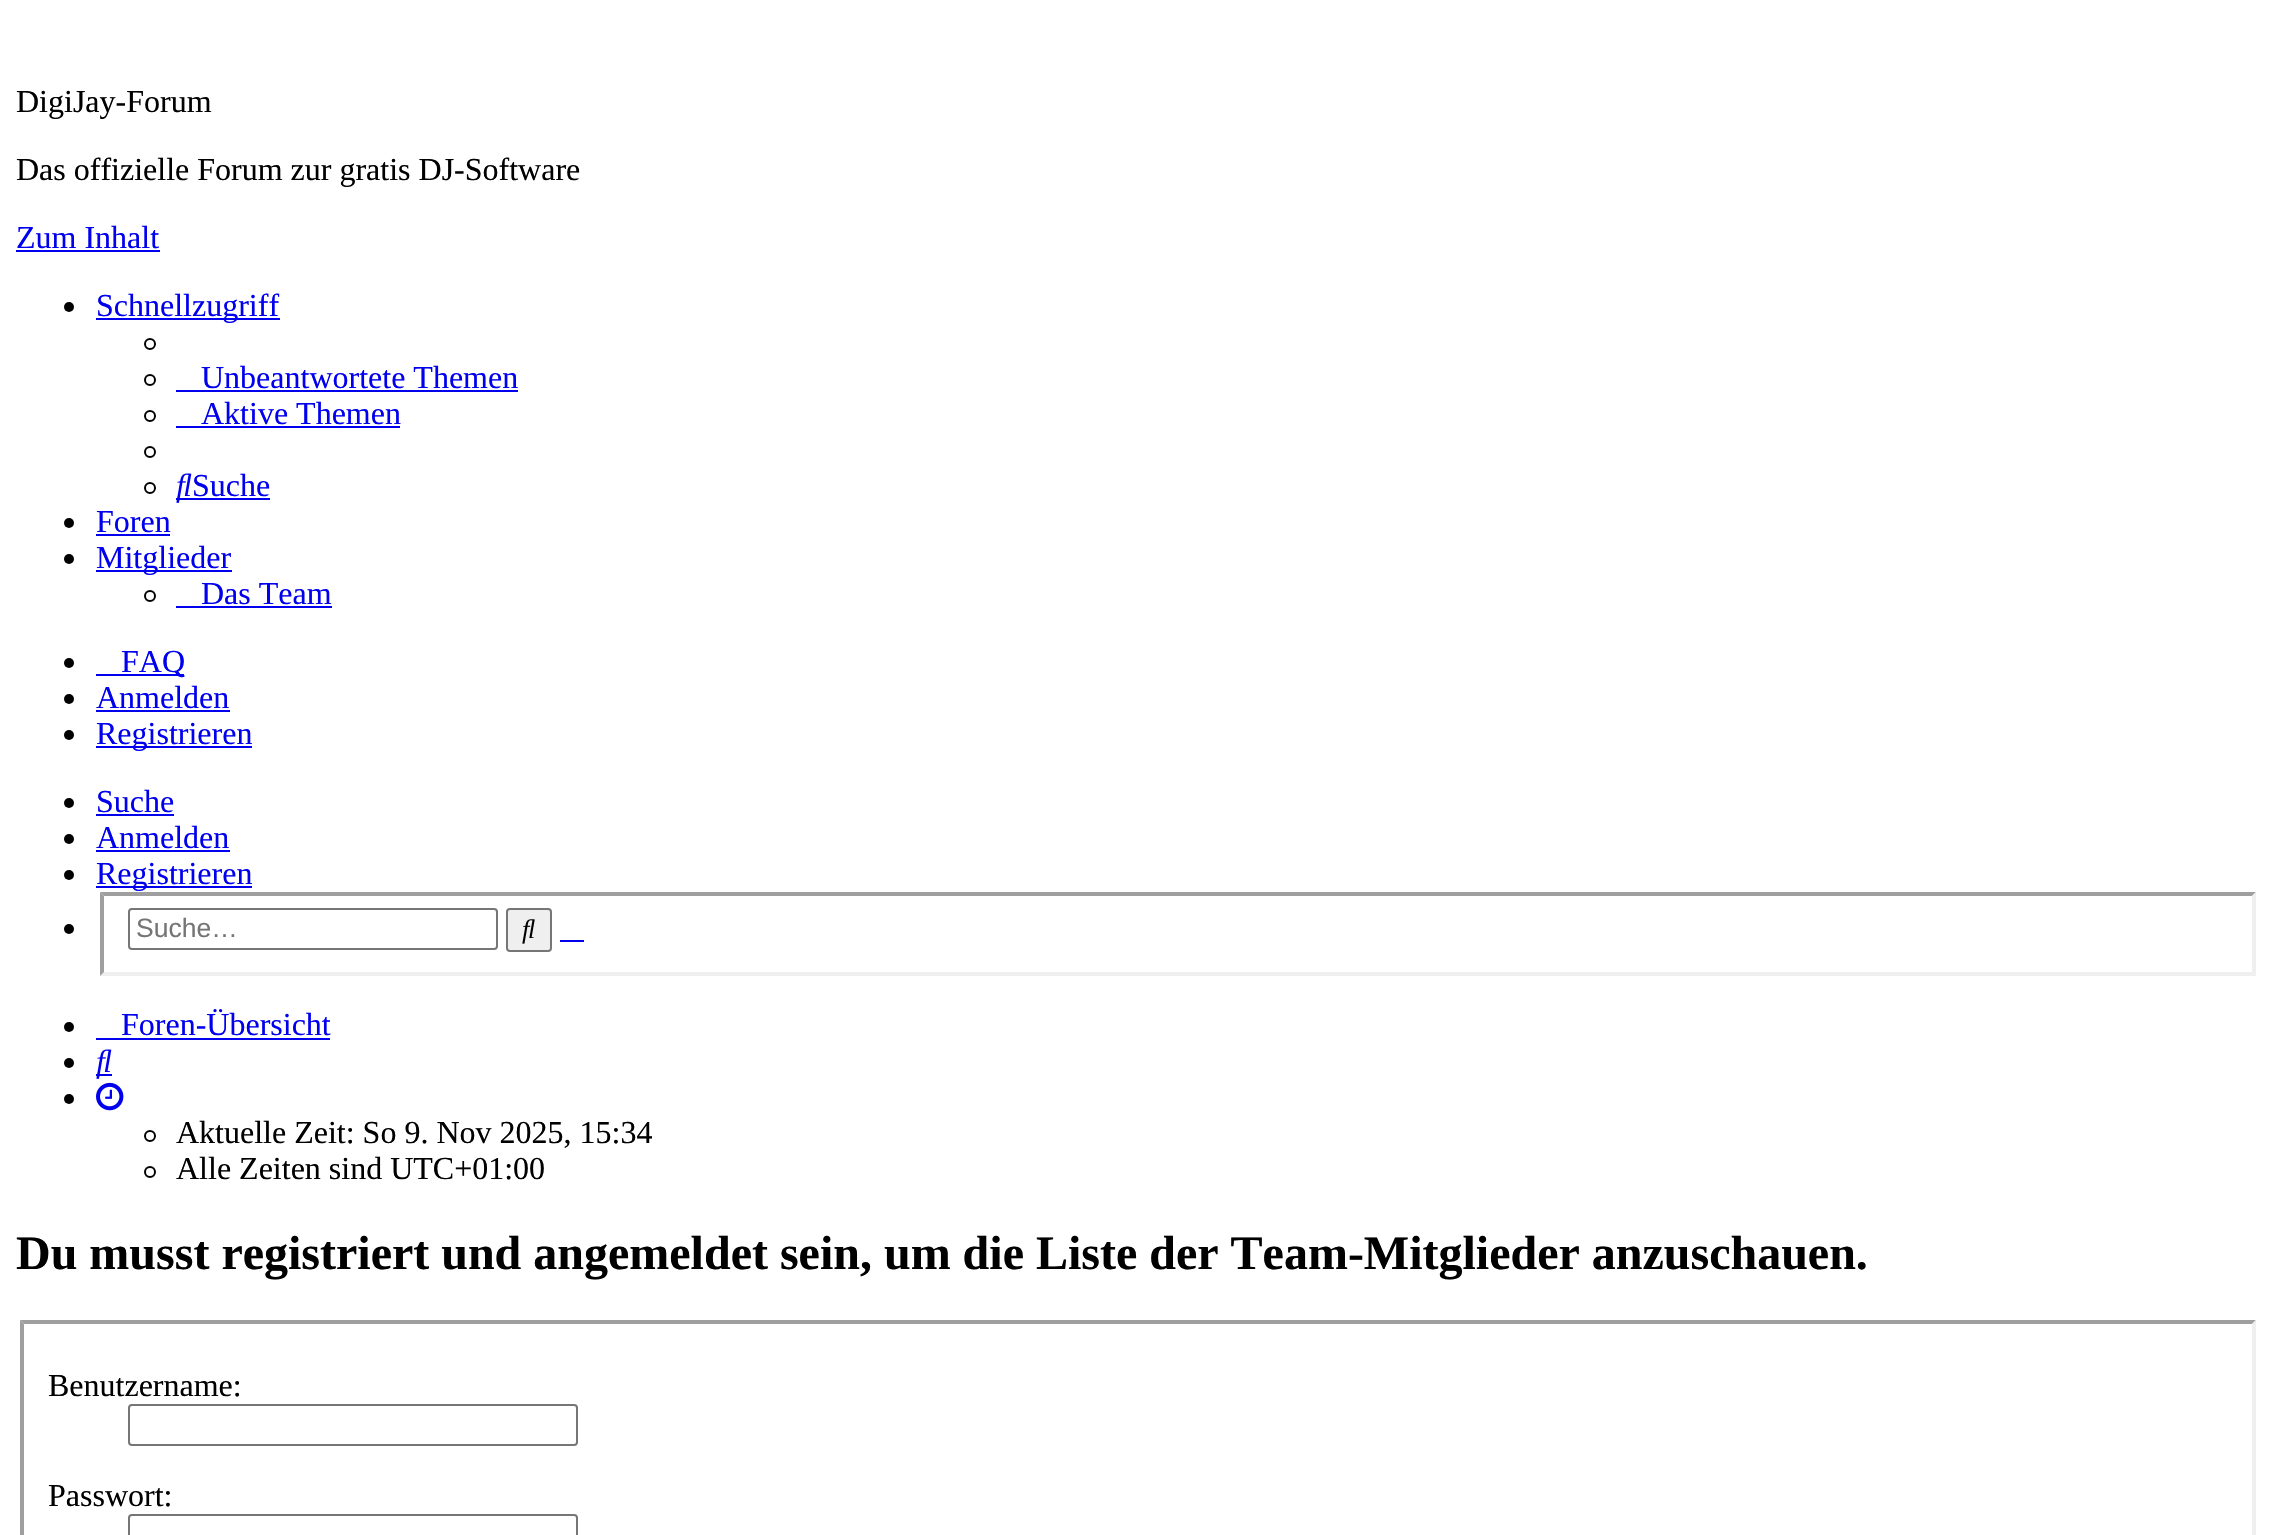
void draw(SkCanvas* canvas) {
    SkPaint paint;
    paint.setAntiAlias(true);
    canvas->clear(0xFFFFFFFF);
    SkFont font1(fontMgr->matchFamilyStyle("Liberation Serif", SkFontStyle::Normal()), 32);
    font1.setSubpixel(true);
    paint.setColor(0xFF000000);
    canvas->drawString("DigiJay-Forum", 16, 112, font1, paint);
    canvas->drawString("Das offizielle Forum zur gratis DJ-Software", 16, 180, font1, paint);
    paint.setColor(0xFF0000EE);
    canvas->drawString("Zum Inhalt", 16, 248, font1, paint);
    canvas->drawRect(SkRect::MakeXYWH(16, 250, 144, 2), paint);
    paint.setColor(0xFF000000);
    canvas->drawCircle(69, 307, 5, paint);
    paint.setColor(0xFF0000EE);
    canvas->drawRect(SkRect::MakeXYWH(96, 318, 184, 2), paint);
    canvas->drawString("Schnellzugriff", 96, 316, font1, paint);
    paint.setStyle(SkPaint::kStroke_Style);
    paint.setStrokeWidth(2);
    paint.setColor(0xFF000000);
    canvas->drawCircle(150, 344, 5, paint);
    canvas->drawCircle(150, 380, 5, paint);
    paint.setStyle(SkPaint::kFill_Style);
    paint.setColor(0xFF0000EE);
    canvas->drawString("Unbeantwortete Themen", 201, 388, font1, paint);
    canvas->drawRect(SkRect::MakeXYWH(176, 390, 342, 2), paint);
    paint.setStyle(SkPaint::kStroke_Style);
    paint.setColor(0xFF000000);
    canvas->drawCircle(150, 416, 5, paint);
    paint.setStyle(SkPaint::kFill_Style);
    paint.setColor(0xFF0000EE);
    canvas->drawString("Aktive Themen", 201, 424, font1, paint);
    canvas->drawRect(SkRect::MakeXYWH(176, 426, 224, 2), paint);
    paint.setStyle(SkPaint::kStroke_Style);
    paint.setColor(0xFF000000);
    canvas->drawCircle(150, 452, 5, paint);
    canvas->drawCircle(150, 488, 5, paint);
    paint.setStyle(SkPaint::kFill_Style);
    paint.setColor(0xFF0000EE);
    canvas->drawRect(SkRect::MakeXYWH(176, 498, 94, 2), paint);
    canvas->drawImageRect(SkImages::DeferredFromEncodedData(SkData::MakeFromFileName("img1.png")), SkRect::MakeXYWH(176, 473, 16, 30), SkSamplingOptions());
    canvas->drawString("Suche", 192, 496, font1, paint);
    paint.setColor(0xFF000000);
    canvas->drawCircle(69, 523, 5, paint);
    paint.setColor(0xFF0000EE);
    canvas->drawString("Foren", 96, 532, font1, paint);
    canvas->drawRect(SkRect::MakeXYWH(96, 534, 74, 2), paint);
    paint.setColor(0xFF000000);
    canvas->drawCircle(69, 559, 5, paint);
    paint.setColor(0xFF0000EE);
    canvas->drawRect(SkRect::MakeXYWH(96, 570, 136, 2), paint);
    canvas->drawString("Mitglieder", 96, 568, font1, paint);
    paint.setStyle(SkPaint::kStroke_Style);
    paint.setColor(0xFF000000);
    canvas->drawCircle(150, 596, 5, paint);
    paint.setStyle(SkPaint::kFill_Style);
    paint.setColor(0xFF0000EE);
    canvas->drawString("Das Team", 201, 604, font1, paint);
    canvas->drawRect(SkRect::MakeXYWH(176, 606, 156, 2), paint);
    paint.setColor(0xFF000000);
    canvas->drawCircle(69, 663, 5, paint);
    paint.setColor(0xFF0000EE);
    canvas->drawRect(SkRect::MakeXYWH(96, 674, 88, 2), paint);
    canvas->drawString("FAQ", 121, 672, font1, paint);
    paint.setColor(0xFF000000);
    canvas->drawCircle(69, 699, 5, paint);
    paint.setColor(0xFF0000EE);
    canvas->drawString("Anmelden", 96, 708, font1, paint);
    canvas->drawRect(SkRect::MakeXYWH(96, 710, 134, 2), paint);
    paint.setColor(0xFF000000);
    canvas->drawCircle(69, 735, 5, paint);
    paint.setColor(0xFF0000EE);
    canvas->drawRect(SkRect::MakeXYWH(96, 746, 156, 2), paint);
    canvas->drawString("Registrieren", 96, 744, font1, paint);
    paint.setColor(0xFF000000);
    canvas->drawCircle(69, 803, 5, paint);
    paint.setColor(0xFF0000EE);
    canvas->drawString("Suche", 96, 812, font1, paint);
    canvas->drawRect(SkRect::MakeXYWH(96, 814, 78, 2), paint);
    paint.setColor(0xFF000000);
    canvas->drawCircle(69, 839, 5, paint);
    paint.setColor(0xFF0000EE);
    canvas->drawString("Anmelden", 96, 848, font1, paint);
    canvas->drawRect(SkRect::MakeXYWH(96, 850, 134, 2), paint);
    paint.setColor(0xFF000000);
    canvas->drawCircle(69, 875, 5, paint);
    paint.setColor(0xFF0000EE);
    canvas->drawRect(SkRect::MakeXYWH(96, 886, 156, 2), paint);
    canvas->drawString("Registrieren", 96, 884, font1, paint);
    paint.setColor(0xFF000000);
    canvas->drawCircle(69, 929, 5, paint);
    paint.setColor(0xFF9F9F9F);
    canvas->drawPath(SkPathBuilder().moveTo(100, 892).lineTo(2256, 892).lineTo(2252, 896).lineTo(104, 896).close().detach(), paint);
    paint.setColor(0xFFEFEFEF);
    canvas->drawPath(SkPathBuilder().moveTo(2256, 892).lineTo(2256, 976).lineTo(2252, 972).lineTo(2252, 896).close().detach(), paint);
    canvas->drawPath(SkPathBuilder().moveTo(2256, 976).lineTo(100, 976).lineTo(104, 972).lineTo(2252, 972).close().detach(), paint);
    paint.setColor(0xFF9F9F9F);
    canvas->drawPath(SkPathBuilder().moveTo(100, 976).lineTo(100, 892).lineTo(104, 896).lineTo(104, 972).close().detach(), paint);
    paint.setStyle(SkPaint::kStroke_Style);
    paint.setColor(0xFF767676);
    canvas->drawRoundRect(SkRect::MakeXYWH(129, 909, 368, 40), 3, 3, paint);
    SkFont font2(fontMgr->matchFamilyStyle("Liberation Sans", SkFontStyle::Normal()), 26.5f);
    font2.setSubpixel(true);
    paint.setStyle(SkPaint::kFill_Style);
    paint.setColor(0xFF757575);
    canvas->drawString("Suche…", 136, 937, font2, paint);
    paint.setColor(0xFFEFEFEF);
    canvas->drawRoundRect(SkRect::MakeXYWH(507, 909, 44, 42), 3, 3, paint);
    paint.setStyle(SkPaint::kStroke_Style);
    paint.setColor(0xFF767676);
    canvas->drawRoundRect(SkRect::MakeXYWH(507, 909, 44, 42), 3, 3, paint);
    canvas->drawImageRect(SkImages::DeferredFromEncodedData(SkData::MakeFromFileName("img2.png")), SkRect::MakeXYWH(522, 919, 13, 25), SkSamplingOptions());
    paint.setStyle(SkPaint::kFill_Style);
    paint.setColor(0xFF0000EE);
    canvas->drawRect(SkRect::MakeXYWH(560, 940, 24, 2), paint);
    paint.setColor(0xFF000000);
    canvas->drawCircle(69, 1027, 5, paint);
    paint.setColor(0xFF0000EE);
    canvas->drawString("Foren-Übersicht", 121, 1035, font1, paint);
    canvas->drawRect(SkRect::MakeXYWH(96, 1038, 234, 2), paint);
    paint.setColor(0xFF000000);
    canvas->drawCircle(69, 1063, 5, paint);
    paint.setColor(0xFF0000EE);
    canvas->drawRect(SkRect::MakeXYWH(96, 1074, 16, 2), paint);
    canvas->drawImageRect(SkImages::DeferredFromEncodedData(SkData::MakeFromFileName("img1.png")), SkRect::MakeXYWH(96, 1049, 16, 30), SkSamplingOptions());
    paint.setColor(0xFF000000);
    canvas->drawCircle(69, 1099, 5, paint);
    canvas->drawImageRect(SkImages::DeferredFromEncodedData(SkData::MakeFromFileName("img3.png")), SkRect::MakeXYWH(96, 1082, 28, 29), SkSamplingOptions());
    paint.setStyle(SkPaint::kStroke_Style);
    canvas->drawCircle(150, 1136, 5, paint);
    paint.setStyle(SkPaint::kFill_Style);
    canvas->drawString("Aktuelle Zeit: So 9. Nov 2025, 15:34", 176, 1143, font1, paint);
    paint.setStyle(SkPaint::kStroke_Style);
    canvas->drawCircle(150, 1172, 5, paint);
    paint.setStyle(SkPaint::kFill_Style);
    canvas->drawString("Alle Zeiten sind UTC+01:00", 176, 1179, font1, paint);
    SkFont font3(fontMgr->matchFamilyStyle("Liberation Serif", SkFontStyle::Bold()), 48);
    font3.setSubpixel(true);
    canvas->drawString("Du musst registriert und angemeldet sein, um die Liste der Team-Mitglieder anzuschauen.", 16, 1269, font3, paint);
    paint.setColor(0xFF9F9F9F);
    canvas->drawPath(SkPathBuilder().moveTo(20, 1320).lineTo(2256, 1320).lineTo(2252, 1324).lineTo(24, 1324).close().detach(), paint);
    paint.setColor(0xFFEFEFEF);
    canvas->drawPath(SkPathBuilder().moveTo(2256, 1320).lineTo(2256, 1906).lineTo(2252, 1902).lineTo(2252, 1324).close().detach(), paint);
    paint.setColor(0xFF9F9F9F);
    canvas->drawPath(SkPathBuilder().moveTo(20, 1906).lineTo(20, 1320).lineTo(24, 1324).lineTo(24, 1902).close().detach(), paint);
    paint.setColor(0xFF000000);
    canvas->drawString("Benutzername:", 48, 1396, font1, paint);
    paint.setStyle(SkPaint::kStroke_Style);
    paint.setColor(0xFF767676);
    canvas->drawRoundRect(SkRect::MakeXYWH(129, 1405, 448, 40), 3, 3, paint);
    paint.setStyle(SkPaint::kFill_Style);
    paint.setColor(0xFF000000);
    canvas->drawString("Passwort:", 48, 1506, font1, paint);
    paint.setStyle(SkPaint::kStroke_Style);
    paint.setColor(0xFF767676);
    canvas->drawRoundRect(SkRect::MakeXYWH(129, 1515, 448, 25), 3, 3, paint);
}
